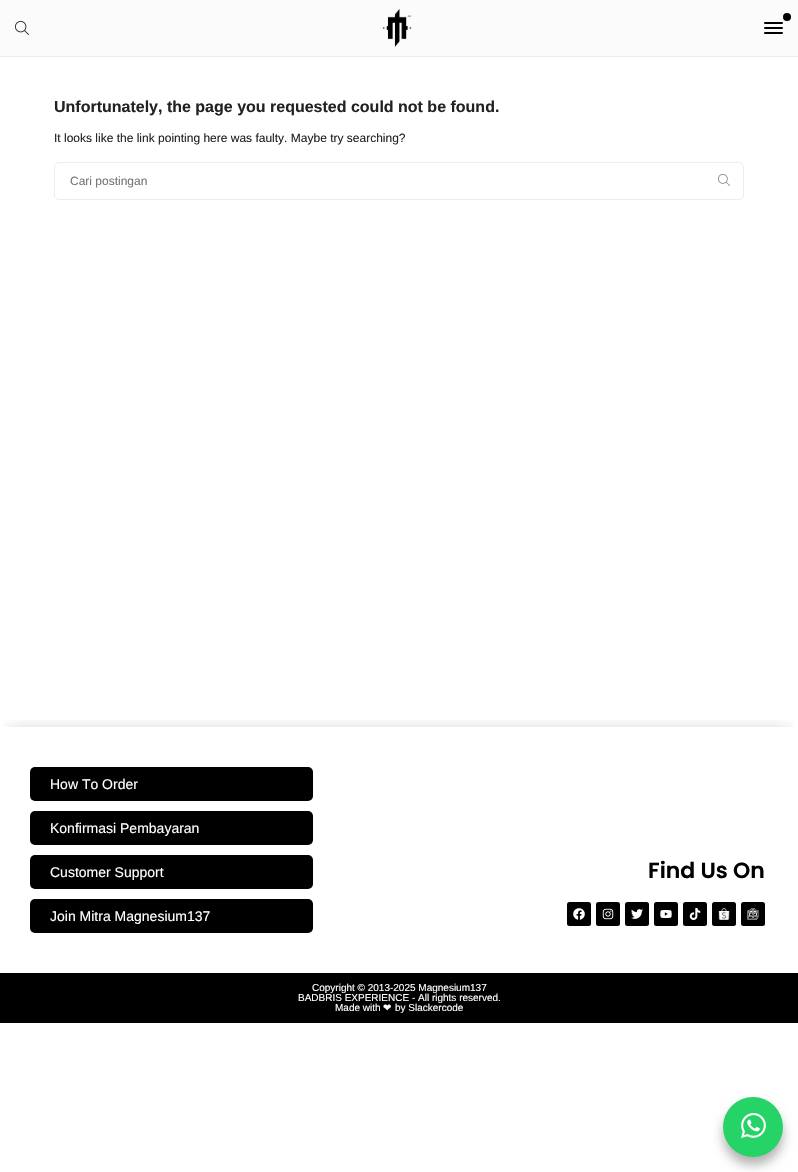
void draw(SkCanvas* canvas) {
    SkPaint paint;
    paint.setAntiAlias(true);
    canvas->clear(0xFFFFFFFF);
    paint.setColor(0xFFFBFBFB);
    canvas->drawRect(SkRect::MakeXYWH(0, 0, 798, 56), paint);
    paint.setColor(0xFFEDEDED);
    canvas->drawRect(SkRect::MakeXYWH(0, 56, 798, 1), paint);
    canvas->drawImageRect(SkImages::DeferredFromEncodedData(SkData::MakeFromFileName("img1.png")), SkRect::MakeXYWH(15, 21, 14, 14), SkSamplingOptions());
    canvas->drawImageRect(SkImages::DeferredFromEncodedData(SkData::MakeFromFileName("img2.png")), SkRect::MakeXYWH(382, 8, 30, 39), SkSamplingOptions());
    paint.setColor(0xFF000000);
    canvas->drawCircle(787, 17, 4, paint);
    canvas->drawRoundRect(SkRect::MakeXYWH(764, 27, 19, 2), 1, 1, paint);
    canvas->drawRoundRect(SkRect::MakeXYWH(764, 22, 19, 2), 1, 1, paint);
    canvas->drawRoundRect(SkRect::MakeXYWH(764, 32, 19, 2), 1, 1, paint);
    SkFont font1(fontMgr->matchFamilyStyle("Liberation Sans", SkFontStyle::Bold()), 16);
    font1.setSubpixel(true);
    paint.setColor(0xFF222222);
    canvas->drawString("Unfortunately, the page you requested could not be found.", 54, 112, font1, paint);
    SkFont font2(fontMgr->matchFamilyStyle("Liberation Sans", SkFontStyle::Normal()), 12);
    font2.setSubpixel(true);
    canvas->drawString("It looks like the link pointing here was faulty. Maybe try searching?", 54, 142, font2, paint);
    paint.setStyle(SkPaint::kStroke_Style);
    paint.setStrokeWidth(1);
    paint.setColor(0xFFEDEDED);
    canvas->drawRoundRect(SkRect::MakeXYWH(54.5f, 162.5f, 689, 37), 4.5f, 4.5f, paint);
    paint.setStyle(SkPaint::kFill_Style);
    paint.setColor(0xFF757575);
    canvas->drawString("Cari postingan", 70, 185, font2, paint);
    canvas->drawImageRect(SkImages::DeferredFromEncodedData(SkData::MakeFromFileName("img3.png")), SkRect::MakeXYWH(718, 174, 12, 12), SkSamplingOptions());
    canvas->save();
    canvas->clipRect(SkRect::MakeXYWH(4, 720, 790, 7));
    paint.setColor(0x80000000);
    paint.setMaskFilter(SkMaskFilter::MakeBlur(kNormal_SkBlurStyle, 10));
    canvas->drawRect(SkRect::MakeXYWH(10, 737, 778, 226), paint);
    paint.setMaskFilter(nullptr);
    canvas->restore();
    paint.setColor(0xFF000000);
    canvas->drawRoundRect(SkRect::MakeXYWH(30, 767, 283, 34), 5, 5, paint);
    SkFont font3(fontMgr->matchFamilyStyle("Liberation Sans", SkFontStyle::Normal()), 14);
    font3.setSubpixel(true);
    paint.setColor(0xFFFFFFFF);
    canvas->drawString("How To Order", 50, 789, font3, paint);
    paint.setColor(0xFF000000);
    canvas->drawRoundRect(SkRect::MakeXYWH(30, 811, 283, 34), 5, 5, paint);
    paint.setColor(0xFFFFFFFF);
    canvas->drawString("Konfirmasi Pembayaran", 50, 833, font3, paint);
    paint.setColor(0xFF000000);
    canvas->drawRoundRect(SkRect::MakeXYWH(30, 855, 283, 34), 5, 5, paint);
    paint.setColor(0xFFFFFFFF);
    canvas->drawString("Customer Support", 50, 877, font3, paint);
    paint.setColor(0xFF000000);
    canvas->drawRoundRect(SkRect::MakeXYWH(30, 899, 283, 34), 5, 5, paint);
    paint.setColor(0xFFFFFFFF);
    canvas->drawString("Join Mitra Magnesium137", 50, 921, font3, paint);
    SkFont font4(fontMgr->matchFamilyStyle("Poppins", SkFontStyle(600, SkFontStyle::kNormal_Width, SkFontStyle::kUpright_Slant)), 22);
    font4.setSubpixel(true);
    paint.setColor(0xFF000000);
    canvas->drawString("Find Us On", 648, 878, font4, paint);
    canvas->drawRoundRect(SkRect::MakeXYWH(567, 902, 24, 24), 2.5f, 2.5f, paint);
    canvas->drawImageRect(SkImages::DeferredFromEncodedData(SkData::MakeFromFileName("img4.png")), SkRect::MakeXYWH(573, 908, 12, 12), SkSamplingOptions());
    canvas->drawRoundRect(SkRect::MakeXYWH(596, 902, 24, 24), 2.5f, 2.5f, paint);
    canvas->drawImageRect(SkImages::DeferredFromEncodedData(SkData::MakeFromFileName("img5.png")), SkRect::MakeXYWH(602, 908, 12, 12), SkSamplingOptions());
    canvas->drawRoundRect(SkRect::MakeXYWH(625, 902, 24, 24), 2.5f, 2.5f, paint);
    canvas->drawImageRect(SkImages::DeferredFromEncodedData(SkData::MakeFromFileName("img6.png")), SkRect::MakeXYWH(631, 909, 12, 10), SkSamplingOptions());
    canvas->drawRoundRect(SkRect::MakeXYWH(654, 902, 24, 24), 2.5f, 2.5f, paint);
    canvas->drawImageRect(SkImages::DeferredFromEncodedData(SkData::MakeFromFileName("img7.png")), SkRect::MakeXYWH(660, 910, 12, 8), SkSamplingOptions());
    canvas->drawRoundRect(SkRect::MakeXYWH(683, 902, 24, 24), 2.5f, 2.5f, paint);
    canvas->drawImageRect(SkImages::DeferredFromEncodedData(SkData::MakeFromFileName("img8.png")), SkRect::MakeXYWH(689, 908, 12, 12), SkSamplingOptions());
    canvas->drawRoundRect(SkRect::MakeXYWH(712, 902, 24, 24), 2.5f, 2.5f, paint);
    canvas->drawImageRect(SkImages::DeferredFromEncodedData(SkData::MakeFromFileName("img9.png")), SkRect::MakeXYWH(718, 908, 12, 12), SkSamplingOptions());
    canvas->drawRoundRect(SkRect::MakeXYWH(741, 902, 24, 24), 2.5f, 2.5f, paint);
    canvas->drawImageRect(SkImages::DeferredFromEncodedData(SkData::MakeFromFileName("img10.png")), SkRect::MakeXYWH(747, 908, 12, 12), SkSamplingOptions());
    canvas->drawRect(SkRect::MakeXYWH(0, 973, 798, 50), paint);
    SkFont font5(fontMgr->matchFamilyStyle("Liberation Sans", SkFontStyle::Normal()), 10);
    font5.setSubpixel(true);
    paint.setColor(0xFFFFFFFF);
    canvas->drawString("Copyright © 2013-2025 Magnesium137", 312, 991, font5, paint);
    canvas->drawString("BADBRIS EXPERIENCE - All rights reserved.", 298, 1001, font5, paint);
    canvas->drawString("Made with", 335, 1011, font5, paint);
    SkFont font6(fontMgr->matchFamilyStyle("DejaVu Sans", SkFontStyle::Normal()), 10);
    font6.setSubpixel(true);
    canvas->drawString("❤", 383, 1011, font6, paint);
    canvas->drawString("by Slackercode", 395, 1011, font5, paint);
    paint.setColor(0x4D000000);
    paint.setMaskFilter(SkMaskFilter::MakeBlur(kNormal_SkBlurStyle, 5.5f));
    canvas->drawRoundRect(SkRect::MakeXYWH(723, 1105, 60, 60), 30, 30, paint);
    paint.setMaskFilter(nullptr);
    paint.setColor(0xFF25D366);
    canvas->drawCircle(753, 1127, 30, paint);
    canvas->drawImageRect(SkImages::DeferredFromEncodedData(SkData::MakeFromFileName("img11.png")), SkRect::MakeXYWH(741, 1113, 25, 25), SkSamplingOptions());
}
